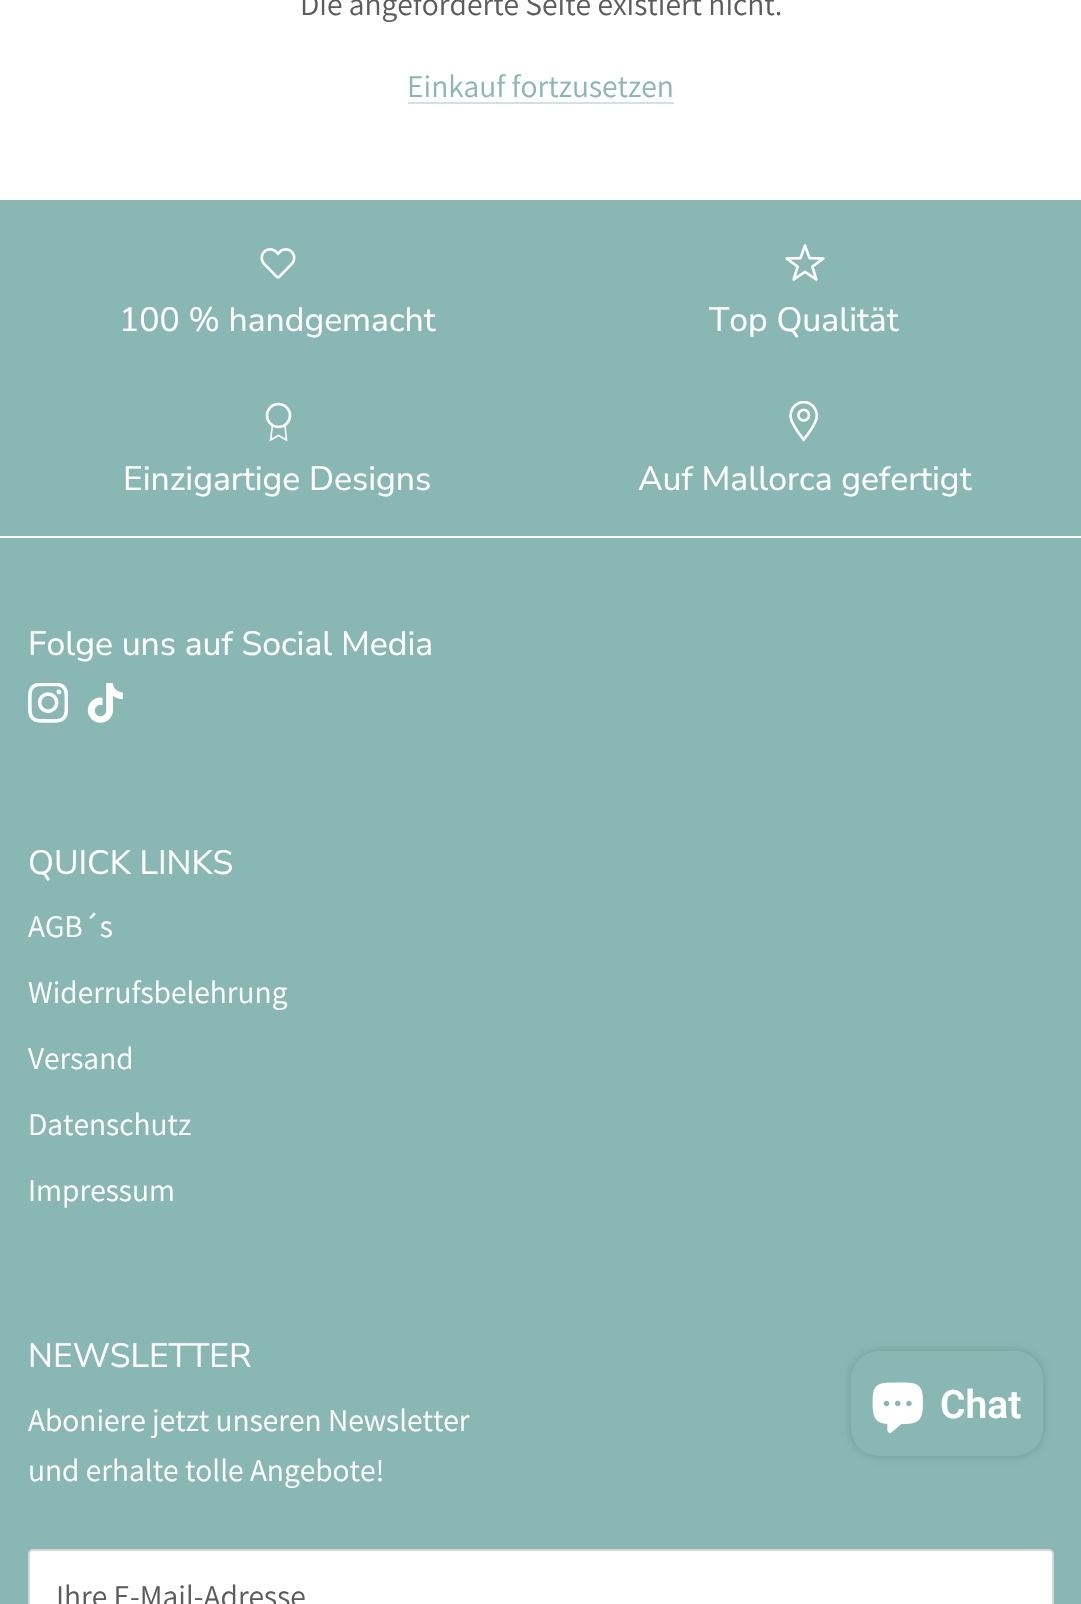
void draw(SkCanvas* canvas) {
    SkPaint paint;
    paint.setAntiAlias(true);
    canvas->clear(0xFFFFFFFF);
    SkFont font1(fontMgr->matchFamilyStyle("Assistant", SkFontStyle::Normal()), 31.5f);
    font1.setSubpixel(true);
    paint.setColor(0xFF5C5C5C);
    canvas->drawString("Die angeforderte Seite existiert nicht.", 300, 15, font1, paint);
    paint.setColor(0xFF89B7B3);
    canvas->drawString("Einkauf fortzusetzen", 407, 97, font1, paint);
    paint.setColor(0xFFD0E2E1);
    canvas->drawRect(SkRect::MakeXYWH(408, 102, 266, 2), paint);
    paint.setColor(0xFF89B7B3);
    canvas->drawRect(SkRect::MakeXYWH(0, 200, 1081, 336), paint);
    canvas->drawImageRect(SkImages::DeferredFromEncodedData(SkData::MakeFromFileName("img1.png")), SkRect::MakeXYWH(260, 248, 36, 31), SkSamplingOptions());
    SkFont font2(fontMgr->matchFamilyStyle("Nunito Sans", SkFontStyle::Normal()), 33.75f);
    font2.setSubpixel(true);
    paint.setColor(0xFFFFFFFF);
    canvas->drawString("100 % handgemacht", 119, 331, font2, paint);
    canvas->drawImageRect(SkImages::DeferredFromEncodedData(SkData::MakeFromFileName("img2.png")), SkRect::MakeXYWH(785, 244, 40, 37), SkSamplingOptions());
    canvas->drawString("Top Qualität", 709, 331, font2, paint);
    paint.setStyle(SkPaint::kStroke_Style);
    paint.setStrokeWidth(2.6f);
    canvas->drawCircle(278.5f, 415.5f, 11.5f, paint);
    paint.setStrokeWidth(1.6f);
    canvas->drawPath(SkPathBuilder().moveTo(272.5f, 425.5f).lineTo(270.5f, 440).lineTo(278.5f, 435.5f).lineTo(286.5f, 440).lineTo(285, 425.5f).detach(), paint);
    paint.setStyle(SkPaint::kFill_Style);
    canvas->drawString("Einzigartige Designs", 123, 490, font2, paint);
    canvas->drawImageRect(SkImages::DeferredFromEncodedData(SkData::MakeFromFileName("img3.png")), SkRect::MakeXYWH(789, 401, 30, 41), SkSamplingOptions());
    canvas->drawString("Auf Mallorca gefertigt", 638, 490, font2, paint);
    paint.setColor(0xFF89B7B3);
    canvas->drawRect(SkRect::MakeXYWH(0, 538, 1081, 1066), paint);
    paint.setColor(0xFFFFFFFF);
    canvas->drawString("Folge uns auf Social Media", 28, 655, font2, paint);
    canvas->drawImageRect(SkImages::DeferredFromEncodedData(SkData::MakeFromFileName("img4.png")), SkRect::MakeXYWH(28, 683, 40, 40), SkSamplingOptions());
    canvas->drawImageRect(SkImages::DeferredFromEncodedData(SkData::MakeFromFileName("img5.png")), SkRect::MakeXYWH(87, 683, 36, 40), SkSamplingOptions());
    canvas->drawString("QUICK LINKS", 28, 874, font2, paint);
    canvas->drawString("AGB´s", 28, 937, font1, paint);
    canvas->drawString("Widerrufsbelehrung", 28, 1003, font1, paint);
    canvas->drawString("Versand", 28, 1069, font1, paint);
    canvas->drawString("Datenschutz", 28, 1135, font1, paint);
    canvas->drawString("Impressum", 28, 1201, font1, paint);
    canvas->drawString("NEWSLETTER", 28, 1367, font2, paint);
    canvas->drawString("Aboniere jetzt unseren Newsletter", 28, 1431, font1, paint);
    canvas->drawString("und erhalte tolle Angebote!", 28, 1481, font1, paint);
    canvas->drawRoundRect(SkRect::MakeXYWH(29, 1550, 1024, 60), 4, 4, paint);
    paint.setStyle(SkPaint::kStroke_Style);
    paint.setStrokeWidth(2);
    paint.setColor(0xFFD6D6D6);
    canvas->drawRoundRect(SkRect::MakeXYWH(29, 1550, 1024, 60), 4, 4, paint);
    paint.setStyle(SkPaint::kFill_Style);
    paint.setColor(0xFF5C5C5C);
    canvas->drawString("Ihre E-Mail-Adresse", 56, 1607, font1, paint);
    paint.setColor(0x26000000);
    paint.setMaskFilter(SkMaskFilter::MakeBlur(kNormal_SkBlurStyle, 4.5f));
    canvas->drawRoundRect(SkRect::MakeXYWH(851, 1351, 192, 105), 28, 28, paint);
    paint.setMaskFilter(nullptr);
    paint.setColor(0xFF89B7B3);
    canvas->drawRoundRect(SkRect::MakeXYWH(851, 1351, 192, 105), 28, 28, paint);
    canvas->drawImageRect(SkImages::DeferredFromEncodedData(SkData::MakeFromFileName("img6.png")), SkRect::MakeXYWH(872, 1382, 51, 51), SkSamplingOptions());
    SkFont font3(fontMgr->matchFamilyStyle("Roboto", SkFontStyle(600, SkFontStyle::kNormal_Width, SkFontStyle::kUpright_Slant)), 39);
    font3.setSubpixel(true);
    paint.setColor(0xFFFFFFFF);
    canvas->drawString("Chat", 940, 1418, font3, paint);
}
